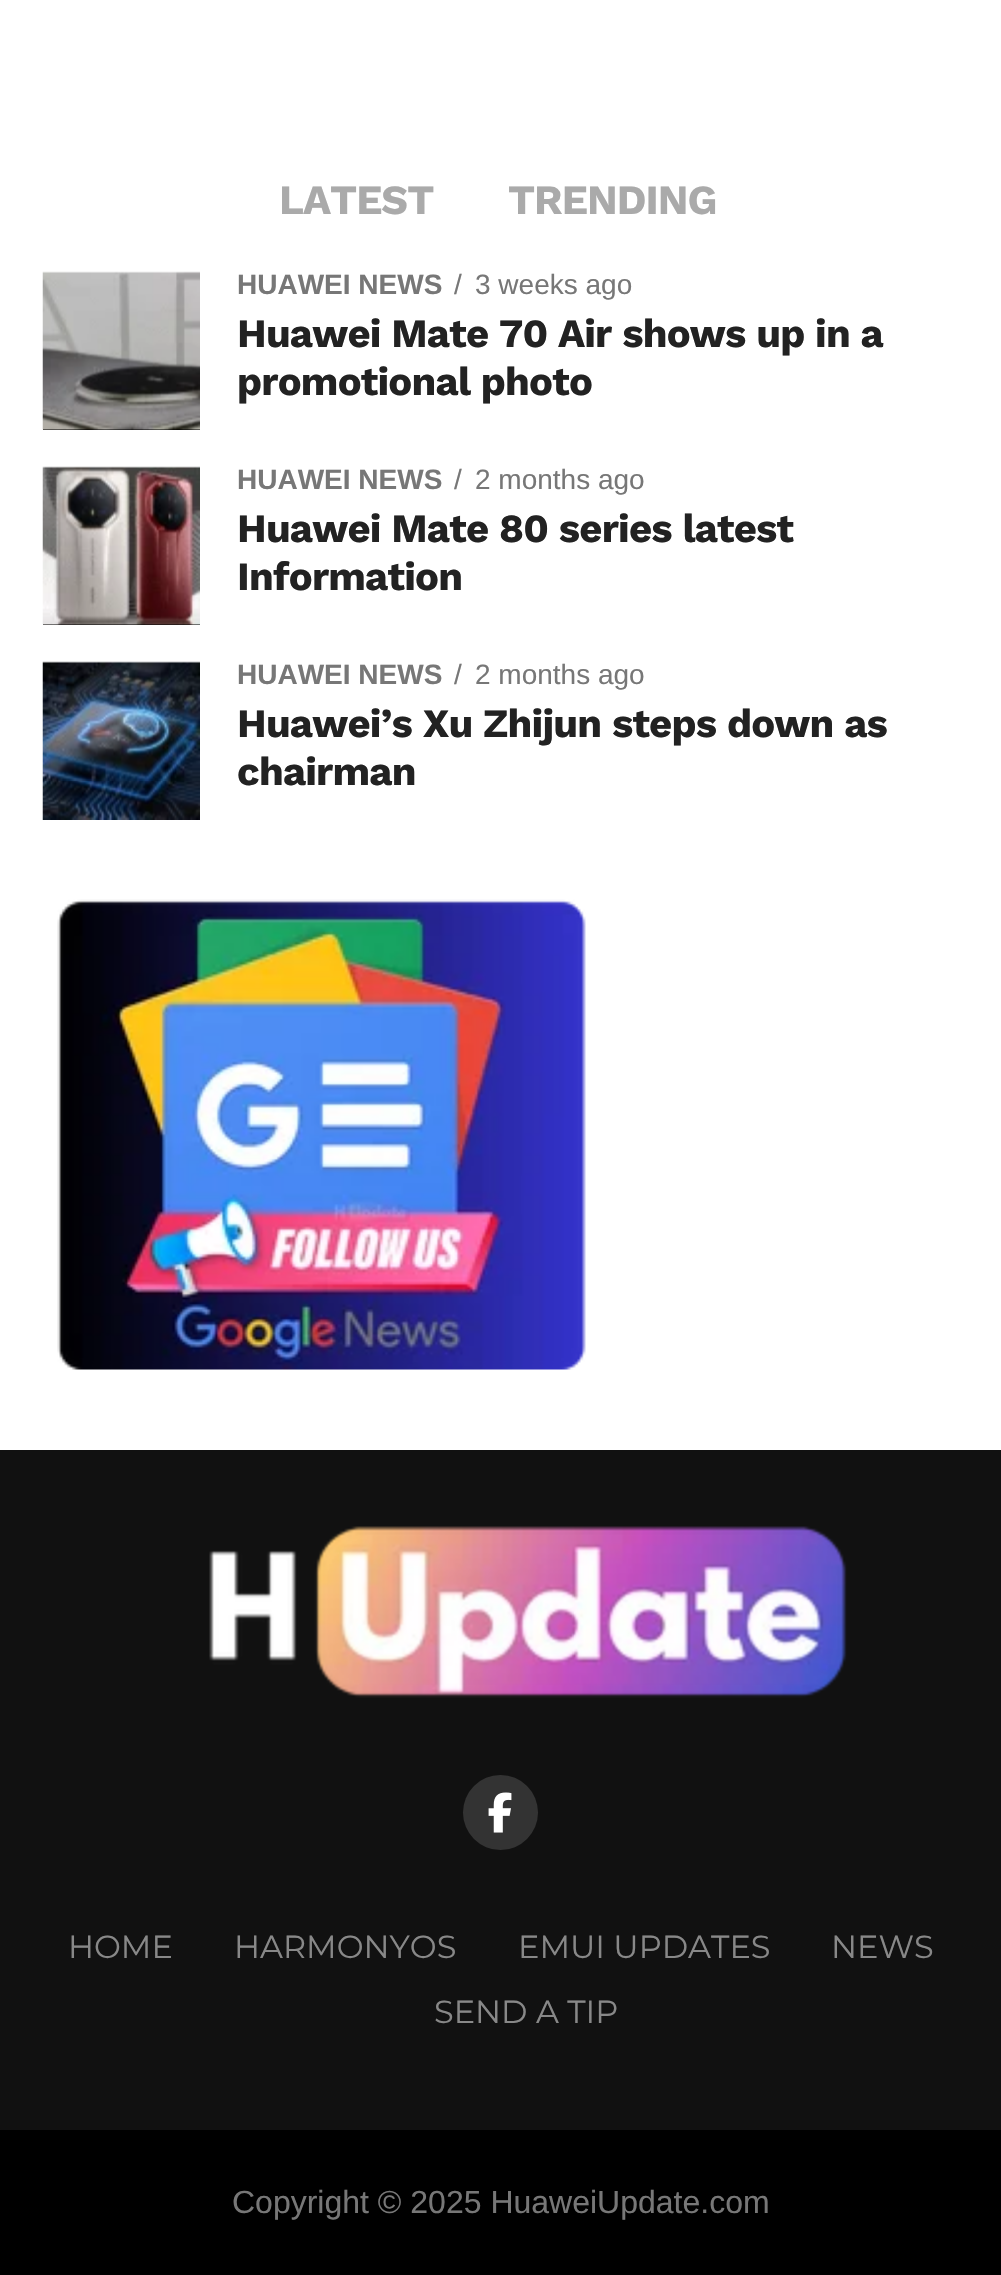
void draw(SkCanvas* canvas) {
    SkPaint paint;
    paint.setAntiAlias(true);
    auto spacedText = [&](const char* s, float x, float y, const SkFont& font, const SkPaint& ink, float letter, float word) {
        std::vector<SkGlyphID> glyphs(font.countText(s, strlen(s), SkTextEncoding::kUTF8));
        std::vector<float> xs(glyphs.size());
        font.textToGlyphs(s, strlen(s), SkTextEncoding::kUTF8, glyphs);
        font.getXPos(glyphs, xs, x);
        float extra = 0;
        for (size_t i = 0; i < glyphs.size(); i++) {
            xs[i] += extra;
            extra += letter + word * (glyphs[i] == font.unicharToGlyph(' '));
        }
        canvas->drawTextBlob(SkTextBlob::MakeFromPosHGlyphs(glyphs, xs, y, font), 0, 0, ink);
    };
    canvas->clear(0xFFFFFFFF);
    SkFont font1(fontMgr->matchFamilyStyle("Work Sans", SkFontStyle::Bold()), 41.5f);
    font1.setSubpixel(true);
    paint.setColor(0xFFAAAAAA);
    spacedText("LATEST", 279, 214, font1, paint, -1, 0);
    spacedText("TRENDING", 508, 214, font1, paint, -1, 0);
    paint.setColor(0xFF000000);
    canvas->drawRect(SkRect::MakeXYWH(43, 429, 157, 1), paint);
    canvas->drawImageRect(SkImages::DeferredFromEncodedData(SkData::MakeFromFileName("img1.png")), SkRect::MakeXYWH(42, 271, 158, 159), SkSamplingOptions());
    SkFont font2(fontMgr->matchFamilyStyle("Liberation Sans", SkFontStyle::Bold()), 28);
    font2.setSubpixel(true);
    paint.setColor(0xFF777777);
    canvas->drawString("HUAWEI NEWS", 237, 294, font2, paint);
    SkFont font3(fontMgr->matchFamilyStyle("Liberation Sans", SkFontStyle::Normal()), 28);
    font3.setSubpixel(true);
    canvas->drawString("/", 454, 294, font3, paint);
    canvas->drawString("3 weeks ago", 475, 294, font3, paint);
    SkFont font4(fontMgr->matchFamilyStyle("Work Sans", SkFontStyle::Bold()), 40);
    font4.setSubpixel(true);
    paint.setColor(0xFF222222);
    spacedText("Huawei Mate 70 Air shows up in a", 237, 347, font4, paint, -0.8f, 0);
    spacedText("promotional photo", 237, 395, font4, paint, -0.8f, 0);
    paint.setColor(0xFF000000);
    canvas->drawRect(SkRect::MakeXYWH(43, 624, 157, 1), paint);
    canvas->drawImageRect(SkImages::DeferredFromEncodedData(SkData::MakeFromFileName("img2.png")), SkRect::MakeXYWH(42, 466, 158, 159), SkSamplingOptions());
    paint.setColor(0xFF777777);
    canvas->drawString("HUAWEI NEWS", 237, 489, font2, paint);
    canvas->drawString("/", 454, 489, font3, paint);
    canvas->drawString("2 months ago", 475, 489, font3, paint);
    paint.setColor(0xFF222222);
    spacedText("Huawei Mate 80 series latest", 237, 542, font4, paint, -0.8f, 0);
    spacedText("Information", 237, 590, font4, paint, -0.8f, 0);
    canvas->drawImageRect(SkImages::DeferredFromEncodedData(SkData::MakeFromFileName("img3.png")), SkRect::MakeXYWH(42, 661, 158, 159), SkSamplingOptions());
    paint.setColor(0xFF777777);
    canvas->drawString("HUAWEI NEWS", 237, 684, font2, paint);
    canvas->drawString("/", 454, 684, font3, paint);
    canvas->drawString("2 months ago", 475, 684, font3, paint);
    paint.setColor(0xFF222222);
    spacedText("Huawei’s Xu Zhijun steps down as", 237, 737, font4, paint, -0.8f, 0);
    spacedText("chairman", 237, 785, font4, paint, -0.8f, 0);
    canvas->drawImageRect(SkImages::DeferredFromEncodedData(SkData::MakeFromFileName("img4.png")), SkRect::MakeXYWH(57, 899, 529, 471), SkSamplingOptions());
    paint.setColor(0xFF111111);
    canvas->drawRect(SkRect::MakeXYWH(0, 1450, 1001, 680), paint);
    canvas->drawImageRect(SkImages::DeferredFromEncodedData(SkData::MakeFromFileName("img5.png")), SkRect::MakeXYWH(209, 1526, 638, 172), SkSamplingOptions());
    paint.setColor(0xFF333333);
    canvas->drawCircle(500.5f, 1812.5f, 37.5f, paint);
    canvas->drawImageRect(SkImages::DeferredFromEncodedData(SkData::MakeFromFileName("img6.png")), SkRect::MakeXYWH(488, 1792, 24, 41), SkSamplingOptions());
    SkFont font5(fontMgr->matchFamilyStyle("Montserrat", SkFontStyle::Normal()), 32);
    font5.setSubpixel(true);
    paint.setColor(0xFF888888);
    canvas->drawString("HOME", 68, 1958, font5, paint);
    canvas->drawString("HARMONYOS", 234, 1958, font5, paint);
    canvas->drawString("EMUI UPDATES", 518, 1958, font5, paint);
    canvas->drawString("NEWS", 831, 1958, font5, paint);
    canvas->drawString("SEND A TIP", 434, 2023, font5, paint);
    paint.setColor(0xFF000000);
    canvas->drawRect(SkRect::MakeXYWH(0, 2130, 1001, 145), paint);
    SkFont font6(fontMgr->matchFamilyStyle("Liberation Sans", SkFontStyle::Normal()), 32);
    font6.setSubpixel(true);
    paint.setColor(0xFF777777);
    canvas->drawString("Copyright © 2025 HuaweiUpdate.com", 232, 2213, font6, paint);
}
